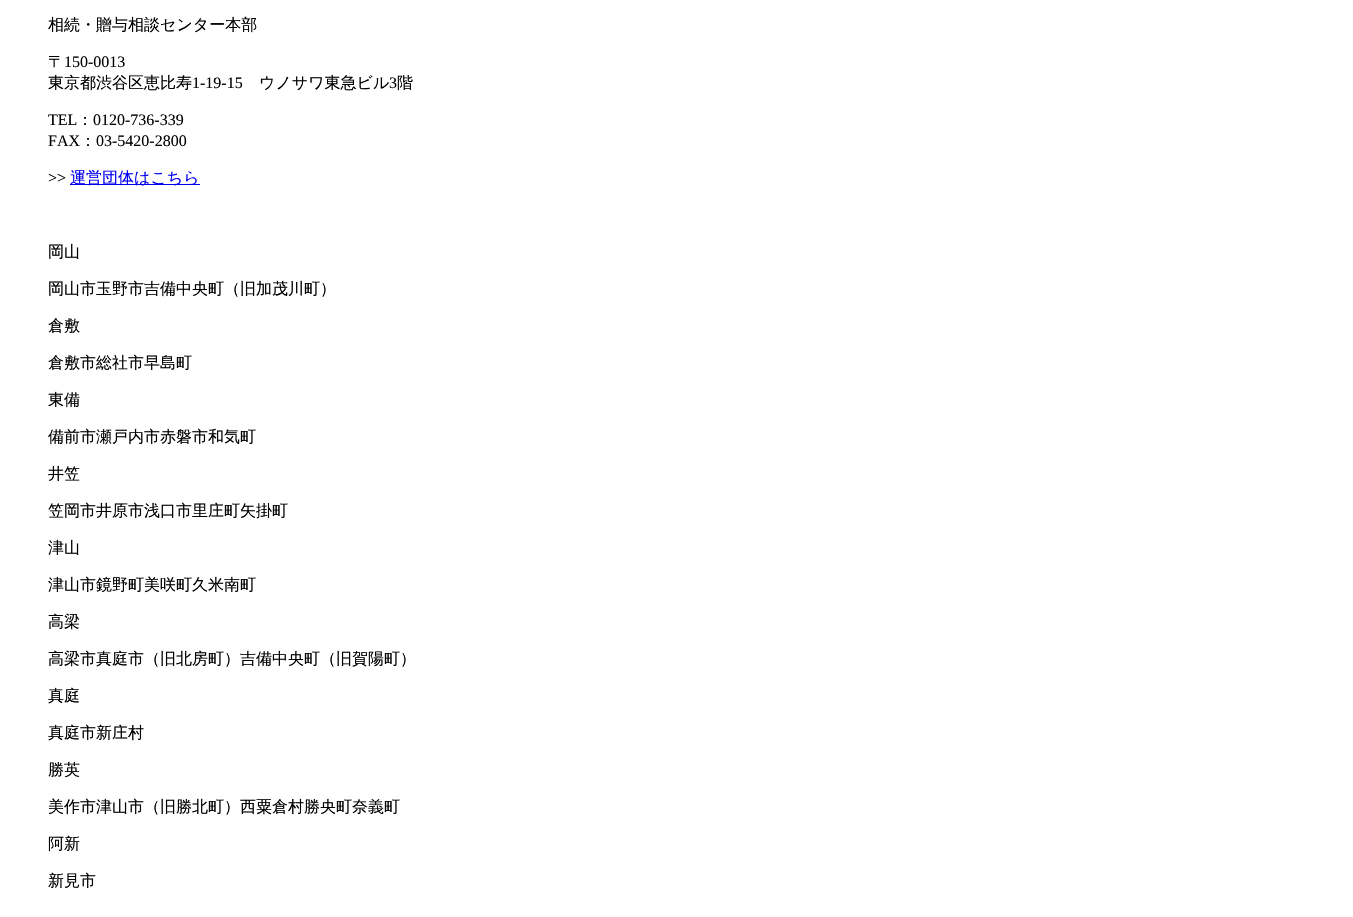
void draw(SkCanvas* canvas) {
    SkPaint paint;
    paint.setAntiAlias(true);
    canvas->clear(0xFFFFFFFF);
    SkFont font1(fontMgr->matchFamilyStyle("WenQuanYi Zen Hei", SkFontStyle(500, SkFontStyle::kNormal_Width, SkFontStyle::kUpright_Slant)), 16);
    font1.setSubpixel(true);
    paint.setColor(0xFF000000);
    canvas->drawString("相続・贈与相談センター本部", 48, 30, font1, paint);
    canvas->drawString("〒", 48, 67, font1, paint);
    SkFont font2(fontMgr->matchFamilyStyle("Liberation Serif", SkFontStyle::Normal()), 16);
    font2.setSubpixel(true);
    canvas->drawString("150-0013", 64, 67, font2, paint);
    canvas->drawString("東京都渋谷区恵比寿", 48, 88, font1, paint);
    canvas->drawString("1-19-15", 192, 88, font2, paint);
    canvas->drawString("ウノサワ東急ビル", 259, 88, font1, paint);
    canvas->drawString("3", 389, 88, font2, paint);
    canvas->drawString("階", 397, 88, font1, paint);
    canvas->drawString("TEL", 48, 125, font2, paint);
    canvas->drawString("：", 77, 125, font1, paint);
    canvas->drawString("0120-736-339", 93, 125, font2, paint);
    canvas->drawString("FAX", 48, 146, font2, paint);
    canvas->drawString("：", 80, 146, font1, paint);
    canvas->drawString("03-5420-2800", 96, 146, font2, paint);
    canvas->drawString(">>", 48, 183, font2, paint);
    paint.setColor(0xFF0000EE);
    canvas->drawRect(SkRect::MakeXYWH(70, 184, 130, 1), paint);
    canvas->drawString("運営団体はこちら", 70, 183, font1, paint);
    paint.setColor(0xFF000000);
    canvas->drawString("岡山", 48, 257, font1, paint);
    canvas->drawString("岡山市玉野市吉備中央町（旧加茂川町）", 48, 294, font1, paint);
    canvas->drawString("倉敷", 48, 331, font1, paint);
    canvas->drawString("倉敷市総社市早島町", 48, 368, font1, paint);
    canvas->drawString("東備", 48, 405, font1, paint);
    canvas->drawString("備前市瀬戸内市赤磐市和気町", 48, 442, font1, paint);
    canvas->drawString("井笠", 48, 479, font1, paint);
    canvas->drawString("笠岡市井原市浅口市里庄町矢掛町", 48, 516, font1, paint);
    canvas->drawString("津山", 48, 553, font1, paint);
    canvas->drawString("津山市鏡野町美咲町久米南町", 48, 590, font1, paint);
    canvas->drawString("高梁", 48, 627, font1, paint);
    canvas->drawString("高梁市真庭市（旧北房町）吉備中央町（旧賀陽町）", 48, 664, font1, paint);
    canvas->drawString("真庭", 48, 701, font1, paint);
    canvas->drawString("真庭市新庄村", 48, 738, font1, paint);
    canvas->drawString("勝英", 48, 775, font1, paint);
    canvas->drawString("美作市津山市（旧勝北町）西粟倉村勝央町奈義町", 48, 812, font1, paint);
    canvas->drawString("阿新", 48, 849, font1, paint);
    canvas->drawString("新見市", 48, 886, font1, paint);
}
